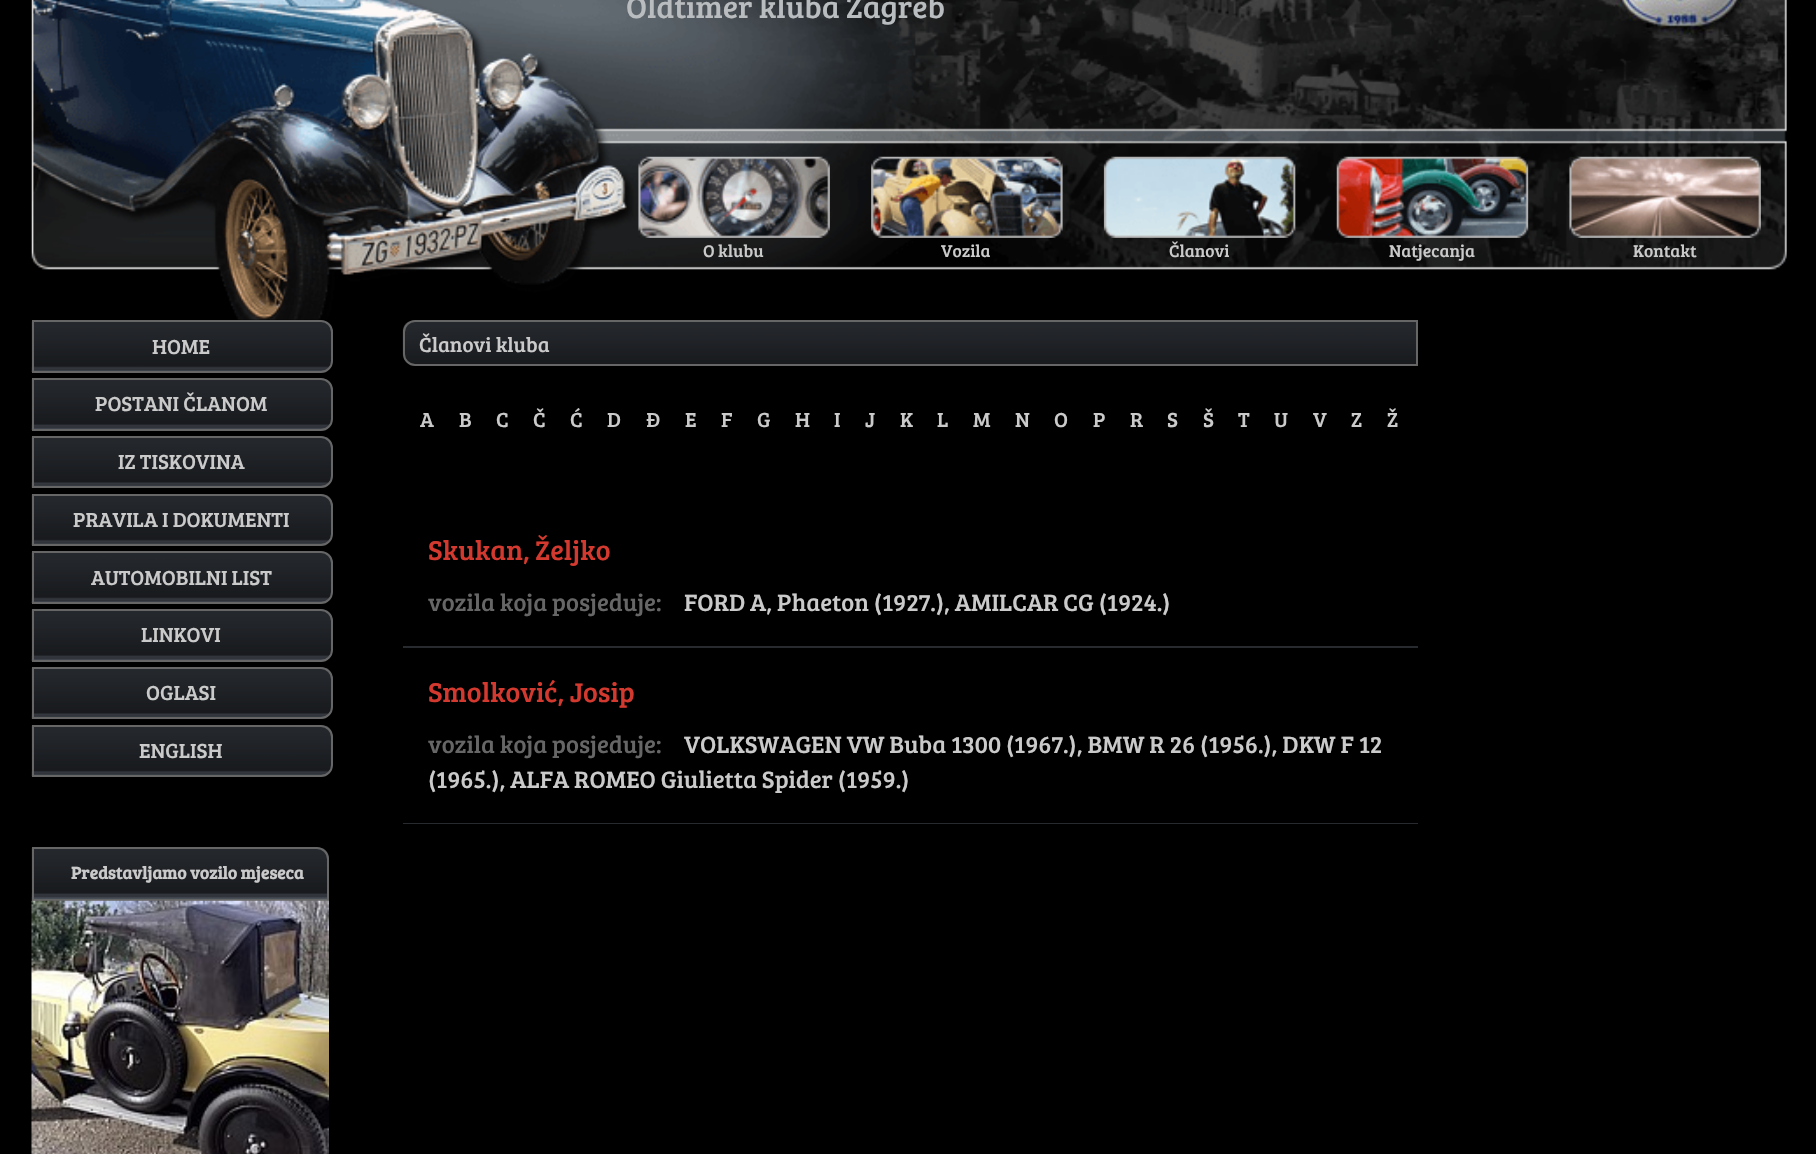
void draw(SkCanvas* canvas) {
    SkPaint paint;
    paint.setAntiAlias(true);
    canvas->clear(0xFF000000);
    canvas->drawImageRect(SkImages::DeferredFromEncodedData(SkData::MakeFromFileName("img1.png")), SkRect::MakeXYWH(31, 0, 1756, 320), SkSamplingOptions());
    SkFont font1(fontMgr->matchFamilyStyle("Bree Serif", SkFontStyle::Normal()), 31.5f);
    font1.setSubpixel(true);
    paint.setColor(0xFFBABDBF);
    canvas->drawString("Oldtimer kluba Zagreb", 626, 18, font1, paint);
    canvas->drawImageRect(SkImages::DeferredFromEncodedData(SkData::MakeFromFileName("img2.png")), SkRect::MakeXYWH(1615, 0, 137, 36), SkSamplingOptions());
    canvas->drawImageRect(SkImages::DeferredFromEncodedData(SkData::MakeFromFileName("img3.png")), SkRect::MakeXYWH(638, 157, 192, 81), SkSamplingOptions());
    SkFont font2(fontMgr->matchFamilyStyle("Bree Serif", SkFontStyle::Normal()), 17.5f);
    font2.setSubpixel(true);
    paint.setColor(0xFFCACACA);
    canvas->drawString("O klubu", 703, 257, font2, paint);
    canvas->drawImageRect(SkImages::DeferredFromEncodedData(SkData::MakeFromFileName("img4.png")), SkRect::MakeXYWH(871, 157, 192, 81), SkSamplingOptions());
    canvas->drawString("Vozila", 941, 257, font2, paint);
    canvas->drawImageRect(SkImages::DeferredFromEncodedData(SkData::MakeFromFileName("img5.png")), SkRect::MakeXYWH(1104, 157, 191, 81), SkSamplingOptions());
    canvas->drawString("Članovi", 1169, 257, font2, paint);
    canvas->drawImageRect(SkImages::DeferredFromEncodedData(SkData::MakeFromFileName("img6.png")), SkRect::MakeXYWH(1337, 157, 191, 81), SkSamplingOptions());
    canvas->drawString("Natjecanja", 1389, 257, font2, paint);
    canvas->drawImageRect(SkImages::DeferredFromEncodedData(SkData::MakeFromFileName("img7.png")), SkRect::MakeXYWH(1569, 157, 192, 81), SkSamplingOptions());
    canvas->drawString("Kontakt", 1633, 257, font2, paint);
    canvas->drawImageRect(SkImages::DeferredFromEncodedData(SkData::MakeFromFileName("img8.png")), SkRect::MakeXYWH(31, 321, 301, 51), SkSamplingOptions());
    paint.setStyle(SkPaint::kStroke_Style);
    paint.setStrokeWidth(2);
    paint.setColor(0xFF666666);
    canvas->drawPath(SkPathBuilder().moveTo(33, 321).lineTo(321, 321).cubicTo(327, 321, 332, 326, 332, 332).lineTo(332, 361).cubicTo(332, 367, 327, 372, 321, 372).lineTo(33, 372).close().detach(), paint);
    SkFont font3(fontMgr->matchFamilyStyle("Bree Serif", SkFontStyle::Normal()), 21);
    font3.setSubpixel(true);
    paint.setStyle(SkPaint::kFill_Style);
    paint.setColor(0xFFCACACA);
    canvas->drawString("HOME", 152, 354, font3, paint);
    canvas->drawImageRect(SkImages::DeferredFromEncodedData(SkData::MakeFromFileName("img9.png")), SkRect::MakeXYWH(31, 379, 301, 51), SkSamplingOptions());
    paint.setStyle(SkPaint::kStroke_Style);
    paint.setColor(0xFF666666);
    canvas->drawPath(SkPathBuilder().moveTo(33, 379).lineTo(321, 379).cubicTo(327, 379, 332, 384, 332, 390).lineTo(332, 419).cubicTo(332, 425, 327, 430, 321, 430).lineTo(33, 430).close().detach(), paint);
    paint.setStyle(SkPaint::kFill_Style);
    paint.setColor(0xFFCACACA);
    canvas->drawString("POSTANI ČLANOM", 95, 411, font3, paint);
    canvas->drawImageRect(SkImages::DeferredFromEncodedData(SkData::MakeFromFileName("img10.png")), SkRect::MakeXYWH(31, 437, 301, 51), SkSamplingOptions());
    paint.setStyle(SkPaint::kStroke_Style);
    paint.setColor(0xFF666666);
    canvas->drawPath(SkPathBuilder().moveTo(33, 437).lineTo(321, 437).cubicTo(327, 437, 332, 442, 332, 448).lineTo(332, 476).cubicTo(332, 482, 327, 487, 321, 487).lineTo(33, 487).close().detach(), paint);
    paint.setStyle(SkPaint::kFill_Style);
    paint.setColor(0xFFCACACA);
    canvas->drawString("IZ TISKOVINA", 118, 469, font3, paint);
    canvas->drawImageRect(SkImages::DeferredFromEncodedData(SkData::MakeFromFileName("img11.png")), SkRect::MakeXYWH(31, 494, 301, 52), SkSamplingOptions());
    paint.setStyle(SkPaint::kStroke_Style);
    paint.setColor(0xFF666666);
    canvas->drawPath(SkPathBuilder().moveTo(33, 495).lineTo(321, 495).cubicTo(327, 495, 332, 500, 332, 506).lineTo(332, 534).cubicTo(332, 540, 327, 545, 321, 545).lineTo(33, 545).close().detach(), paint);
    paint.setStyle(SkPaint::kFill_Style);
    paint.setColor(0xFFCACACA);
    canvas->drawString("PRAVILA I DOKUMENTI", 73, 527, font3, paint);
    canvas->drawImageRect(SkImages::DeferredFromEncodedData(SkData::MakeFromFileName("img12.png")), SkRect::MakeXYWH(31, 552, 301, 51), SkSamplingOptions());
    paint.setStyle(SkPaint::kStroke_Style);
    paint.setColor(0xFF666666);
    canvas->drawPath(SkPathBuilder().moveTo(33, 552).lineTo(321, 552).cubicTo(327, 552, 332, 557, 332, 563).lineTo(332, 592).cubicTo(332, 598, 327, 603, 321, 603).lineTo(33, 603).close().detach(), paint);
    paint.setStyle(SkPaint::kFill_Style);
    paint.setColor(0xFFCACACA);
    canvas->drawString("AUTOMOBILNI LIST", 91, 585, font3, paint);
    canvas->drawImageRect(SkImages::DeferredFromEncodedData(SkData::MakeFromFileName("img13.png")), SkRect::MakeXYWH(31, 610, 301, 51), SkSamplingOptions());
    paint.setStyle(SkPaint::kStroke_Style);
    paint.setColor(0xFF666666);
    canvas->drawPath(SkPathBuilder().moveTo(33, 610).lineTo(321, 610).cubicTo(327, 610, 332, 615, 332, 621).lineTo(332, 650).cubicTo(332, 656, 327, 661, 321, 661).lineTo(33, 661).close().detach(), paint);
    paint.setStyle(SkPaint::kFill_Style);
    paint.setColor(0xFFCACACA);
    canvas->drawString("LINKOVI", 141, 642, font3, paint);
    canvas->drawImageRect(SkImages::DeferredFromEncodedData(SkData::MakeFromFileName("img14.png")), SkRect::MakeXYWH(31, 668, 301, 51), SkSamplingOptions());
    paint.setStyle(SkPaint::kStroke_Style);
    paint.setColor(0xFF666666);
    canvas->drawPath(SkPathBuilder().moveTo(33, 668).lineTo(321, 668).cubicTo(327, 668, 332, 673, 332, 679).lineTo(332, 707).cubicTo(332, 713, 327, 718, 321, 718).lineTo(33, 718).close().detach(), paint);
    paint.setStyle(SkPaint::kFill_Style);
    paint.setColor(0xFFCACACA);
    canvas->drawString("OGLASI", 146, 700, font3, paint);
    canvas->drawImageRect(SkImages::DeferredFromEncodedData(SkData::MakeFromFileName("img15.png")), SkRect::MakeXYWH(31, 725, 301, 52), SkSamplingOptions());
    paint.setStyle(SkPaint::kStroke_Style);
    paint.setColor(0xFF666666);
    canvas->drawPath(SkPathBuilder().moveTo(33, 726).lineTo(321, 726).cubicTo(327, 726, 332, 731, 332, 737).lineTo(332, 765).cubicTo(332, 771, 327, 776, 321, 776).lineTo(33, 776).close().detach(), paint);
    paint.setStyle(SkPaint::kFill_Style);
    paint.setColor(0xFFCACACA);
    canvas->drawString("ENGLISH", 139, 758, font3, paint);
    canvas->drawImageRect(SkImages::DeferredFromEncodedData(SkData::MakeFromFileName("img16.png")), SkRect::MakeXYWH(31, 848, 298, 53), SkSamplingOptions());
    paint.setStyle(SkPaint::kStroke_Style);
    paint.setColor(0xFF666666);
    canvas->drawPath(SkPathBuilder().moveTo(33, 848).lineTo(317, 848).cubicTo(323, 848, 328, 853, 328, 859).lineTo(328, 900).lineTo(33, 900).close().detach(), paint);
    SkFont font4(fontMgr->matchFamilyStyle("Bree Serif", SkFontStyle::Bold()), 17.5f);
    font4.setSubpixel(true);
    paint.setStyle(SkPaint::kFill_Style);
    paint.setColor(0xFFCACACA);
    canvas->drawString("Predstavljamo vozilo mjeseca", 71, 879, font4, paint);
    canvas->drawImageRect(SkImages::DeferredFromEncodedData(SkData::MakeFromFileName("img17.png")), SkRect::MakeXYWH(31, 900, 298, 254), SkSamplingOptions());
    canvas->drawImageRect(SkImages::DeferredFromEncodedData(SkData::MakeFromFileName("img18.png")), SkRect::MakeXYWH(402, 321, 1014, 44), SkSamplingOptions());
    paint.setStyle(SkPaint::kStroke_Style);
    paint.setColor(0xFF666666);
    canvas->drawPath(SkPathBuilder().moveTo(415, 321).lineTo(1417, 321).lineTo(1417, 365).lineTo(415, 365).cubicTo(409, 365, 404, 360, 404, 354).lineTo(404, 332).cubicTo(404, 326, 409, 321, 415, 321).close().detach(), paint);
    paint.setStyle(SkPaint::kFill_Style);
    paint.setColor(0xFFCACACA);
    canvas->drawString("Članovi kluba", 419, 352, font3, paint);
    canvas->drawString("A", 420, 427, font3, paint);
    canvas->drawString("B", 459, 427, font3, paint);
    canvas->drawString("C", 496, 427, font3, paint);
    canvas->drawString("Č", 533, 427, font3, paint);
    canvas->drawString("Ć", 570, 427, font3, paint);
    canvas->drawString("D", 607, 427, font3, paint);
    canvas->drawString("Đ", 646, 427, font3, paint);
    canvas->drawString("E", 685, 427, font3, paint);
    canvas->drawString("F", 721, 427, font3, paint);
    canvas->drawString("G", 757, 427, font3, paint);
    canvas->drawString("H", 795, 427, font3, paint);
    canvas->drawString("I", 834, 427, font3, paint);
    canvas->drawString("J", 865, 427, font3, paint);
    canvas->drawString("K", 900, 427, font3, paint);
    canvas->drawString("L", 937, 427, font3, paint);
    canvas->drawString("M", 973, 427, font3, paint);
    canvas->drawString("N", 1015, 427, font3, paint);
    canvas->drawString("O", 1054, 427, font3, paint);
    canvas->drawString("P", 1093, 427, font3, paint);
    canvas->drawString("R", 1130, 427, font3, paint);
    canvas->drawString("S", 1167, 427, font3, paint);
    canvas->drawString("Š", 1203, 427, font3, paint);
    canvas->drawString("T", 1238, 427, font3, paint);
    canvas->drawString("U", 1274, 427, font3, paint);
    canvas->drawString("V", 1313, 427, font3, paint);
    canvas->drawString("Z", 1351, 427, font3, paint);
    canvas->drawString("Ž", 1387, 427, font3, paint);
    paint.setColor(0xFF272B30);
    canvas->drawRect(SkRect::MakeXYWH(403, 646, 1015, 2), paint);
    SkFont font5(fontMgr->matchFamilyStyle("Bree Serif", SkFontStyle::Normal()), 28);
    font5.setSubpixel(true);
    paint.setColor(0xFFD3392E);
    canvas->drawString("Skukan, Željko", 428, 560, font5, paint);
    SkFont font6(fontMgr->matchFamilyStyle("Bree Serif", SkFontStyle::Normal()), 24.5f);
    font6.setSubpixel(true);
    paint.setColor(0xFF666666);
    canvas->drawString("vozila koja posjeduje:", 428, 611, font6, paint);
    paint.setColor(0xFFCACACA);
    canvas->drawString("FORD A, Phaeton (1927.), AMILCAR CG (1924.)", 684, 611, font6, paint);
    paint.setColor(0xFF272B30);
    canvas->drawRect(SkRect::MakeXYWH(403, 823, 1015, 1), paint);
    paint.setColor(0xFFD3392E);
    canvas->drawString("Smolković, Josip", 428, 702, font5, paint);
    paint.setColor(0xFF666666);
    canvas->drawString("vozila koja posjeduje:", 428, 753, font6, paint);
    paint.setColor(0xFFCACACA);
    canvas->drawString("VOLKSWAGEN VW Buba 1300 (1967.), BMW R 26 (1956.), DKW F 12", 684, 753, font6, paint);
    canvas->drawString("(1965.), ALFA ROMEO Giulietta Spider (1959.)", 428, 788, font6, paint);
}
